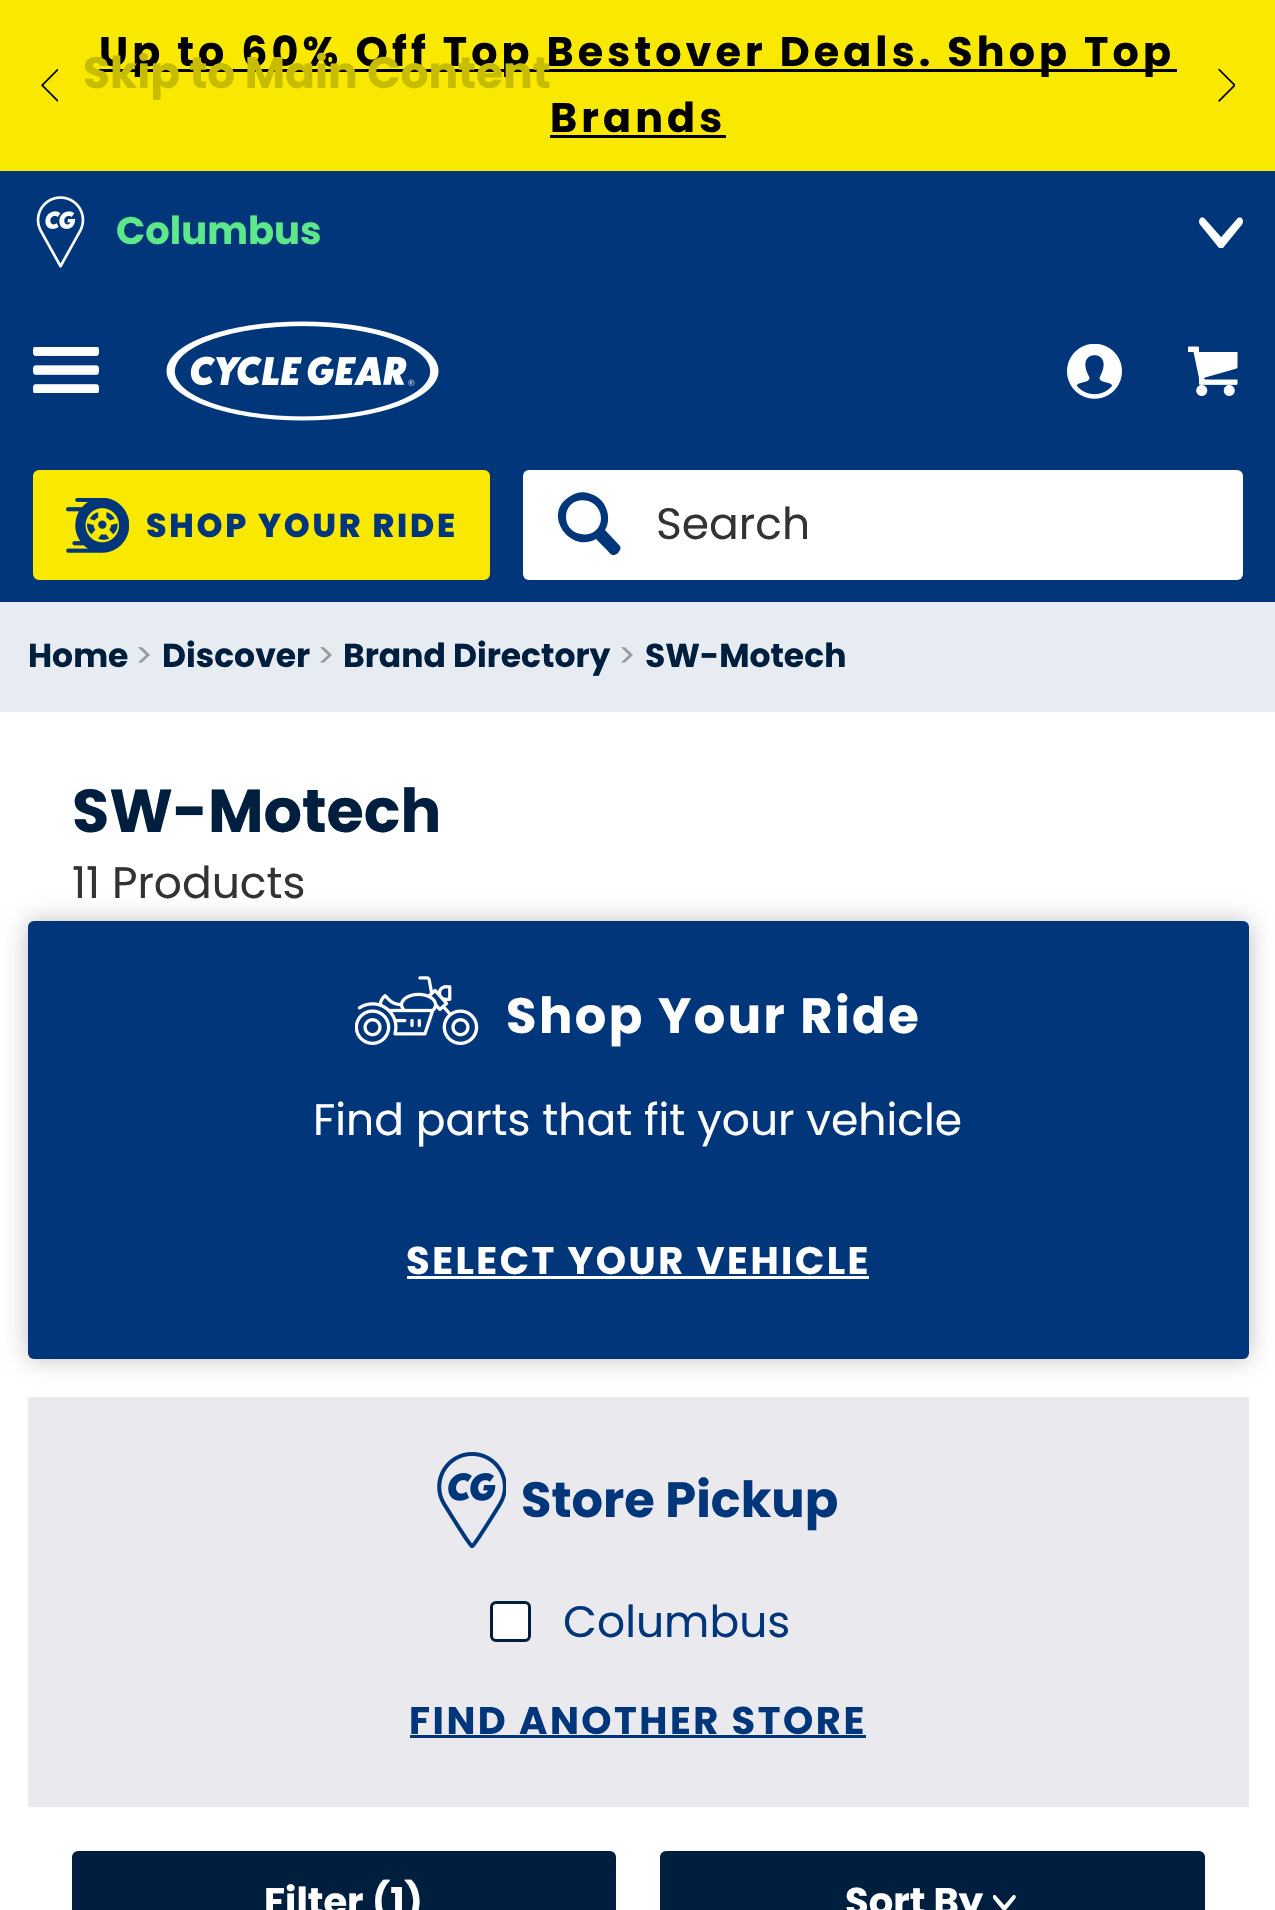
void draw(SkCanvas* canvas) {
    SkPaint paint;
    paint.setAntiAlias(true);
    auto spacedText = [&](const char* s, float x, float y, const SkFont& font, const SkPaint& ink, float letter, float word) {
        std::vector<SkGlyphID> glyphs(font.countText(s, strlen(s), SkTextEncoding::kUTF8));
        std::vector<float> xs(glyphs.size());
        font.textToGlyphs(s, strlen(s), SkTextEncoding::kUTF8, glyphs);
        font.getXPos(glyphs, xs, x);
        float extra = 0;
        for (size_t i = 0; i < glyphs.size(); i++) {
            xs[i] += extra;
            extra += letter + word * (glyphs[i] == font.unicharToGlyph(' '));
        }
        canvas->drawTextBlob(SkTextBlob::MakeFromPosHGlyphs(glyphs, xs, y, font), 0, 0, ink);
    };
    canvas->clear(0xFFFFFFFF);
    paint.setColor(0xFFF9E900);
    canvas->drawRect(SkRect::MakeXYWH(0, 0, 1275, 171), paint);
    canvas->drawImageRect(SkImages::DeferredFromEncodedData(SkData::MakeFromFileName("img1.png")), SkRect::MakeXYWH(41, 69, 17, 33), SkSamplingOptions());
    paint.setColor(0xFF000000);
    canvas->drawRect(SkRect::MakeXYWH(99, 69, 1078, 3), paint);
    SkFont font1(fontMgr->matchFamilyStyle("Poppins", SkFontStyle::Bold()), 41.25f);
    font1.setSubpixel(true);
    spacedText("Up to 60% Off Top Bestover Deals. Shop Top", 99, 66, font1, paint, 4.1f, 0);
    spacedText("Brands", 550, 132, font1, paint, 4.1f, 0);
    canvas->drawRect(SkRect::MakeXYWH(550, 135, 176, 3), paint);
    canvas->drawImageRect(SkImages::DeferredFromEncodedData(SkData::MakeFromFileName("img2.png")), SkRect::MakeXYWH(1218, 69, 17, 33), SkSamplingOptions());
    SkFont font2(fontMgr->matchFamilyStyle("Poppins", SkFontStyle::Bold()), 44);
    font2.setSubpixel(true);
    paint.setColor(0xFFC8BC01);
    canvas->drawString("Skip to Main Content", 83, 88, font2, paint);
    paint.setColor(0xFF02367B);
    canvas->drawRect(SkRect::MakeXYWH(0, 171, 1275, 431), paint);
    canvas->drawImageRect(SkImages::DeferredFromEncodedData(SkData::MakeFromFileName("img3.png")), SkRect::MakeXYWH(36, 196, 49, 72), SkSamplingOptions());
    SkFont font3(fontMgr->matchFamilyStyle("Poppins", SkFontStyle::Bold()), 38.5f);
    font3.setSubpixel(true);
    paint.setColor(0xFF5EE88C);
    canvas->drawString("Columbus", 116, 244, font3, paint);
    canvas->drawImageRect(SkImages::DeferredFromEncodedData(SkData::MakeFromFileName("img4.png")), SkRect::MakeXYWH(1199, 217, 44, 31), SkSamplingOptions());
    canvas->drawImageRect(SkImages::DeferredFromEncodedData(SkData::MakeFromFileName("img5.png")), SkRect::MakeXYWH(33, 347, 66, 46), SkSamplingOptions());
    canvas->drawImageRect(SkImages::DeferredFromEncodedData(SkData::MakeFromFileName("img6.png")), SkRect::MakeXYWH(166, 321, 273, 100), SkSamplingOptions());
    canvas->drawImageRect(SkImages::DeferredFromEncodedData(SkData::MakeFromFileName("img7.png")), SkRect::MakeXYWH(1067, 344, 55, 55), SkSamplingOptions());
    canvas->drawImageRect(SkImages::DeferredFromEncodedData(SkData::MakeFromFileName("img8.png")), SkRect::MakeXYWH(1188, 346, 50, 50), SkSamplingOptions());
    paint.setColor(0xFFF9E900);
    canvas->drawRoundRect(SkRect::MakeXYWH(36, 473, 451, 104), 3, 3, paint);
    paint.setStyle(SkPaint::kStroke_Style);
    paint.setStrokeWidth(6);
    canvas->drawRoundRect(SkRect::MakeXYWH(36, 473, 451, 104), 3, 3, paint);
    canvas->drawImageRect(SkImages::DeferredFromEncodedData(SkData::MakeFromFileName("img9.png")), SkRect::MakeXYWH(66, 498, 63, 55), SkSamplingOptions());
    SkFont font4(fontMgr->matchFamilyStyle("Poppins", SkFontStyle(800, SkFontStyle::kNormal_Width, SkFontStyle::kUpright_Slant)), 33);
    font4.setSubpixel(true);
    paint.setStyle(SkPaint::kFill_Style);
    paint.setColor(0xFF02367B);
    spacedText("SHOP YOUR RIDE", 146, 537, font4, paint, 2.75f, 0);
    paint.setColor(0xFFFFFFFF);
    canvas->drawRoundRect(SkRect::MakeXYWH(523, 470, 720, 110), 6, 6, paint);
    paint.setColor(0xFF02367B);
    canvas->drawPath(SkPathBuilder().moveTo(619, 545).lineTo(605, 530).cubicTo(609, 524, 609, 515, 606, 508).cubicTo(603, 500, 596, 495, 588, 493).cubicTo(581, 491, 575, 493, 569, 497).cubicTo(542, 514, 570, 554, 596, 539).lineTo(606, 549).cubicTo(610, 553, 612, 558, 618, 553).cubicTo(620, 550, 622, 548, 619, 545).close().moveTo(566, 517).cubicTo(566, 494, 600, 495, 601, 518).cubicTo(601, 541, 566, 539, 566, 517).close().detach(), paint);
    SkFont font5(fontMgr->matchFamilyStyle("Poppins", SkFontStyle::Normal()), 44);
    font5.setSubpixel(true);
    paint.setColor(0xFF333333);
    canvas->drawString("Search", 656, 539, font5, paint);
    paint.setColor(0xFFE6ECF1);
    canvas->drawRect(SkRect::MakeXYWH(0, 602, 1275, 110), paint);
    SkFont font6(fontMgr->matchFamilyStyle("Poppins", SkFontStyle::Bold()), 33);
    font6.setSubpixel(true);
    paint.setColor(0xFF001F3F);
    canvas->drawString("Home", 28, 667, font6, paint);
    SkFont font7(fontMgr->matchFamilyStyle("Poppins", SkFontStyle::Normal()), 33);
    font7.setSubpixel(true);
    paint.setColor(0xFF999999);
    canvas->drawString(">", 135, 667, font7, paint);
    paint.setColor(0xFF001F3F);
    canvas->drawString("Discover", 162, 667, font6, paint);
    paint.setColor(0xFF999999);
    canvas->drawString(">", 317, 667, font7, paint);
    paint.setColor(0xFF001F3F);
    canvas->drawString("Brand Directory", 343, 667, font6, paint);
    paint.setColor(0xFF999999);
    canvas->drawString(">", 618, 667, font7, paint);
    paint.setColor(0xFF001F3F);
    canvas->drawString("SW-Motech", 645, 667, font6, paint);
    SkFont font8(fontMgr->matchFamilyStyle("Poppins", SkFontStyle::Bold()), 60.5f);
    font8.setSubpixel(true);
    canvas->drawString("SW-Motech", 72, 832, font8, paint);
    paint.setColor(0x40000000);
    paint.setMaskFilter(SkMaskFilter::MakeBlur(kNormal_SkBlurStyle, 12.5f));
    canvas->drawRoundRect(SkRect::MakeXYWH(28, 921, 1221, 438), 6, 6, paint);
    paint.setMaskFilter(nullptr);
    paint.setColor(0xFF333333);
    canvas->drawString("11 Products", 72, 898, font5, paint);
    paint.setColor(0xFF02367B);
    canvas->drawRoundRect(SkRect::MakeXYWH(28, 921, 1221, 438), 6, 6, paint);
    canvas->drawImageRect(SkImages::DeferredFromEncodedData(SkData::MakeFromFileName("img10.png")), SkRect::MakeXYWH(355, 976, 124, 69), SkSamplingOptions());
    SkFont font9(fontMgr->matchFamilyStyle("Poppins", SkFontStyle::Bold()), 49.5f);
    font9.setSubpixel(true);
    paint.setColor(0xFFFFFFFF);
    spacedText("Shop Your Ride", 506, 1033, font9, paint, 2.5f, 0);
    canvas->drawString("Find parts that fit your vehicle", 313, 1135, font5, paint);
    spacedText("SELECT YOUR VEHICLE", 406, 1274, font3, paint, 2.5f, 0);
    canvas->drawRect(SkRect::MakeXYWH(407, 1276, 462, 3), paint);
    paint.setColor(0xFFEAEAEE);
    canvas->drawRect(SkRect::MakeXYWH(28, 1397, 1221, 410), paint);
    canvas->drawImageRect(SkImages::DeferredFromEncodedData(SkData::MakeFromFileName("img11.png")), SkRect::MakeXYWH(437, 1452, 69, 96), SkSamplingOptions());
    paint.setColor(0xFF02367B);
    canvas->drawString("Store Pickup", 521, 1517, font9, paint);
    paint.setColor(0xFFFFFFFF);
    canvas->drawRoundRect(SkRect::MakeXYWH(491.5f, 1602.5f, 38, 38), 4.5f, 4.5f, paint);
    paint.setStyle(SkPaint::kStroke_Style);
    paint.setStrokeWidth(3);
    paint.setColor(0xFF001F3F);
    canvas->drawRoundRect(SkRect::MakeXYWH(491.5f, 1602.5f, 38, 38), 4.5f, 4.5f, paint);
    paint.setStyle(SkPaint::kFill_Style);
    paint.setColor(0xFF02367B);
    canvas->drawString("Columbus", 563, 1637, font5, paint);
    spacedText("FIND ANOTHER STORE", 409, 1734, font3, paint, 2.5f, 0);
    canvas->drawRect(SkRect::MakeXYWH(410, 1735, 456, 3), paint);
    paint.setColor(0xFF001F3F);
    canvas->drawRoundRect(SkRect::MakeXYWH(75, 1854, 538, 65), 3, 3, paint);
    paint.setStyle(SkPaint::kStroke_Style);
    paint.setStrokeWidth(6);
    canvas->drawRoundRect(SkRect::MakeXYWH(75, 1854, 538, 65), 3, 3, paint);
    paint.setStyle(SkPaint::kFill_Style);
    paint.setColor(0xFFFFFFFF);
    canvas->drawString("Filter (1)", 264, 1915, font3, paint);
    paint.setColor(0xFF001F3F);
    canvas->drawRoundRect(SkRect::MakeXYWH(663, 1854, 539, 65), 3, 3, paint);
    paint.setStyle(SkPaint::kStroke_Style);
    canvas->drawRoundRect(SkRect::MakeXYWH(663, 1854, 539, 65), 3, 3, paint);
    paint.setStyle(SkPaint::kFill_Style);
    paint.setColor(0xFFFFFFFF);
    canvas->drawString("Sort By", 845, 1915, font3, paint);
    canvas->drawImageRect(SkImages::DeferredFromEncodedData(SkData::MakeFromFileName("img12.png")), SkRect::MakeXYWH(993, 1895, 23, 15), SkSamplingOptions());
}
